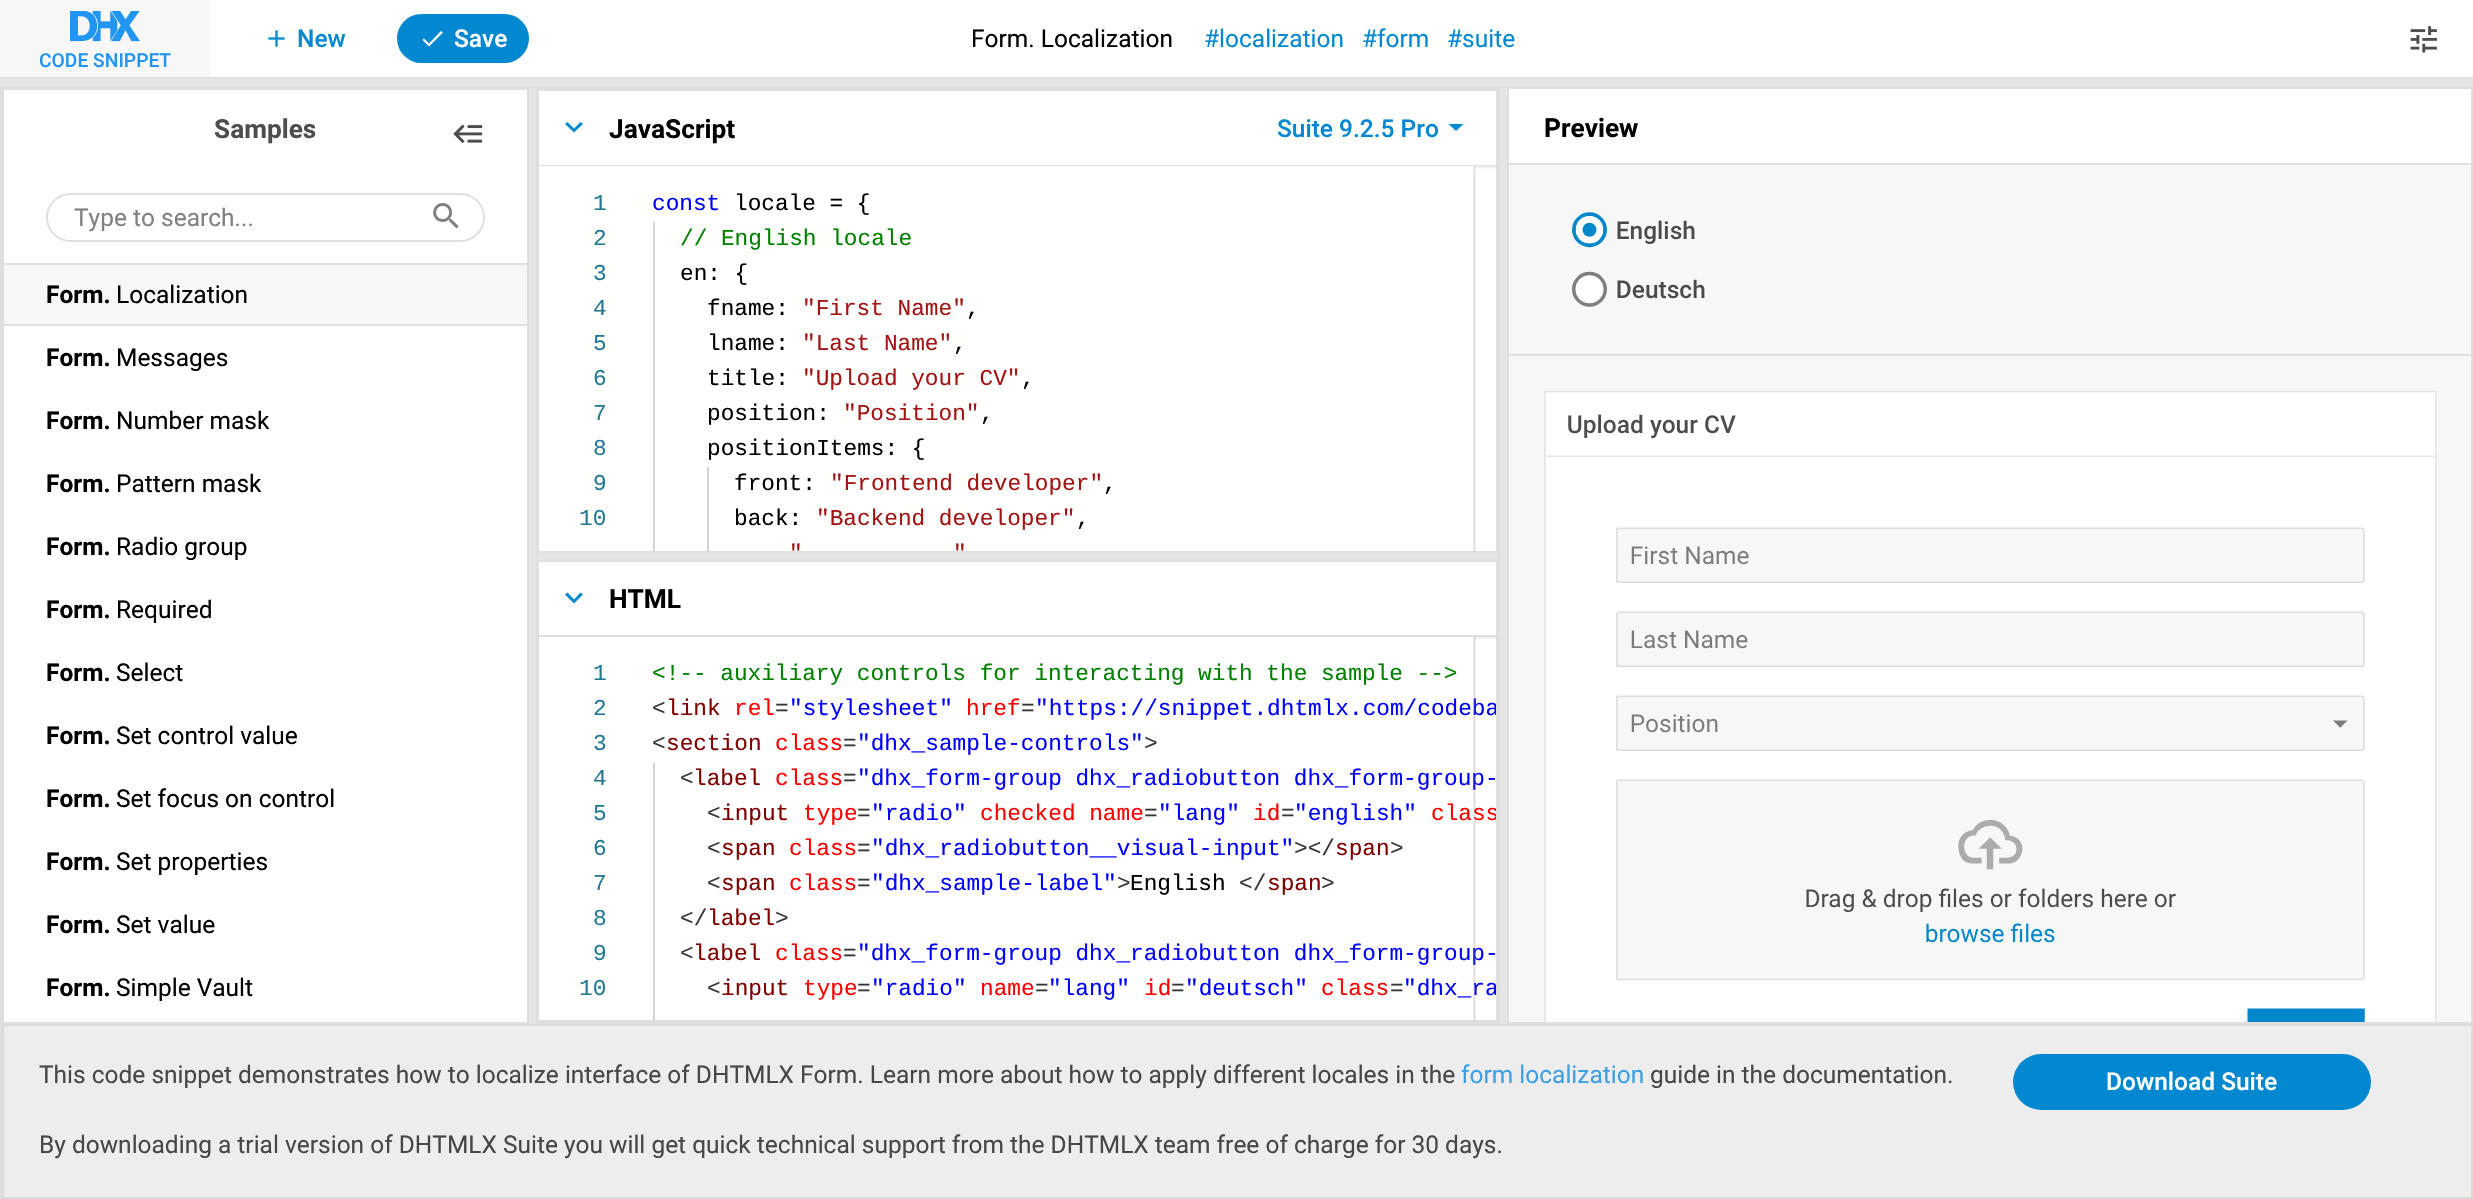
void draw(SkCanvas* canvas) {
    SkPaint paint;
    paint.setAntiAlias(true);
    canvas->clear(0xFFE5E5E5);
    paint.setColor(0xFFFFFFFF);
    canvas->drawRect(SkRect::MakeXYWH(210, 0, 2263, 77), paint);
    paint.setColor(0xFFDFDFDF);
    canvas->drawRect(SkRect::MakeXYWH(0, 77, 2473, 2), paint);
    canvas->drawImageRect(SkImages::DeferredFromEncodedData(SkData::MakeFromFileName("img1.png")), SkRect::MakeXYWH(268, 30, 17, 17), SkSamplingOptions());
    SkFont font1(fontMgr->matchFamilyStyle("Roboto", SkFontStyle(500, SkFontStyle::kNormal_Width, SkFontStyle::kUpright_Slant)), 24.5f);
    font1.setSubpixel(true);
    paint.setColor(0xFF0288D1);
    canvas->drawString("New", 297, 47, font1, paint);
    canvas->drawRoundRect(SkRect::MakeXYWH(397, 14, 132, 49), 24.5f, 24.5f, paint);
    paint.setColor(0xFFFFFFFF);
    canvas->drawPath(SkPathBuilder().moveTo(443, 32.5f).lineTo(429, 46.5f).lineTo(422.5f, 40).lineTo(424, 38.5f).lineTo(429, 43.5f).lineTo(441, 31).close().detach(), paint);
    canvas->drawString("Save", 454, 47, font1, paint);
    SkFont font2(fontMgr->matchFamilyStyle("Roboto", SkFontStyle::Normal()), 24.5f);
    font2.setSubpixel(true);
    paint.setColor(0xFF000000);
    canvas->drawString("Form. Localization", 971, 47, font2, paint);
    paint.setColor(0xFF0288D1);
    canvas->drawString("#localization", 1204, 47, font2, paint);
    canvas->drawString("#form", 1362, 47, font2, paint);
    canvas->drawString("#suite", 1447, 47, font2, paint);
    canvas->drawImageRect(SkImages::DeferredFromEncodedData(SkData::MakeFromFileName("img2.png")), SkRect::MakeXYWH(2410, 26, 27, 27), SkSamplingOptions());
    paint.setColor(0xFFF7F7F7);
    canvas->drawRect(SkRect::MakeXYWH(0, 0, 210, 77), paint);
    canvas->drawImageRect(SkImages::DeferredFromEncodedData(SkData::MakeFromFileName("img3.png")), SkRect::MakeXYWH(70, 11, 70, 31), SkSamplingOptions());
    SkFont font3(fontMgr->matchFamilyStyle("Roboto", SkFontStyle(500, SkFontStyle::kNormal_Width, SkFontStyle::kUpright_Slant)), 19.25f);
    font3.setSubpixel(true);
    paint.setColor(0xFF2095F3);
    canvas->drawString("CODE SNIPPET", 39, 67, font3, paint);
    paint.setStyle(SkPaint::kStroke_Style);
    paint.setStrokeWidth(2);
    paint.setColor(0xFFDFDFDF);
    canvas->drawRect(SkRect::MakeXYWH(1, 87, 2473, 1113), paint);
    paint.setStyle(SkPaint::kFill_Style);
    paint.setColor(0xFFFFFFFF);
    canvas->drawRect(SkRect::MakeXYWH(3, 89, 525, 934), paint);
    paint.setStyle(SkPaint::kStroke_Style);
    paint.setColor(0xFFDFDFDF);
    canvas->drawRect(SkRect::MakeXYWH(3, 89, 525, 934), paint);
    SkFont font4(fontMgr->matchFamilyStyle("Roboto", SkFontStyle::Bold()), 26.25f);
    font4.setSubpixel(true);
    paint.setStyle(SkPaint::kFill_Style);
    paint.setColor(0xFF4D4D4D);
    canvas->drawString("Samples", 214, 138, font4, paint);
    canvas->drawImageRect(SkImages::DeferredFromEncodedData(SkData::MakeFromFileName("img4.png")), SkRect::MakeXYWH(453, 124, 30, 20), SkSamplingOptions());
    paint.setStyle(SkPaint::kStroke_Style);
    paint.setColor(0xFFDFDFDF);
    canvas->drawRoundRect(SkRect::MakeXYWH(47, 194, 437, 47), 23.5f, 23.5f, paint);
    paint.setStyle(SkPaint::kFill_Style);
    paint.setColor(0xFF808080);
    canvas->drawString("Type to search...", 74, 226, font2, paint);
    canvas->drawImageRect(SkImages::DeferredFromEncodedData(SkData::MakeFromFileName("img5.png")), SkRect::MakeXYWH(433, 203, 26, 26), SkSamplingOptions());
    paint.setColor(0xFFF7F7F7);
    canvas->drawRect(SkRect::MakeXYWH(4, 265, 523, 59), paint);
    paint.setColor(0xFFE0E0E0);
    canvas->drawRect(SkRect::MakeXYWH(4, 263, 523, 2), paint);
    SkFont font5(fontMgr->matchFamilyStyle("Roboto", SkFontStyle::Bold()), 24.5f);
    font5.setSubpixel(true);
    paint.setColor(0xFF000000);
    canvas->drawString("Form.", 46, 303, font5, paint);
    canvas->drawString("Localization", 116, 303, font2, paint);
    paint.setColor(0xFFE0E0E0);
    canvas->drawRect(SkRect::MakeXYWH(4, 324, 523, 2), paint);
    paint.setColor(0xFF000000);
    canvas->drawString("Form.", 46, 366, font5, paint);
    canvas->drawString("Messages", 116, 366, font2, paint);
    canvas->drawString("Form.", 46, 429, font5, paint);
    canvas->drawString("Number mask", 116, 429, font2, paint);
    canvas->drawString("Form.", 46, 492, font5, paint);
    canvas->drawString("Pattern mask", 116, 492, font2, paint);
    canvas->drawString("Form.", 46, 555, font5, paint);
    canvas->drawString("Radio group", 116, 555, font2, paint);
    canvas->drawString("Form.", 46, 618, font5, paint);
    canvas->drawString("Required", 116, 618, font2, paint);
    canvas->drawString("Form.", 46, 681, font5, paint);
    canvas->drawString("Select", 116, 681, font2, paint);
    canvas->drawString("Form.", 46, 744, font5, paint);
    canvas->drawString("Set control value", 116, 744, font2, paint);
    canvas->drawString("Form.", 46, 807, font5, paint);
    canvas->drawString("Set focus on control", 116, 807, font2, paint);
    canvas->drawString("Form.", 46, 870, font5, paint);
    canvas->drawString("Set properties", 116, 870, font2, paint);
    canvas->drawString("Form.", 46, 933, font5, paint);
    canvas->drawString("Set value", 116, 933, font2, paint);
    canvas->drawString("Form.", 46, 996, font5, paint);
    canvas->drawString("Simple Vault", 116, 996, font2, paint);
    paint.setStyle(SkPaint::kStroke_Style);
    paint.setColor(0xFFDFDFDF);
    canvas->drawRect(SkRect::MakeXYWH(537, 89, 962, 934), paint);
    paint.setStyle(SkPaint::kFill_Style);
    paint.setColor(0xFFFFFFFF);
    canvas->drawRect(SkRect::MakeXYWH(539, 91, 957, 74), paint);
    paint.setStyle(SkPaint::kStroke_Style);
    paint.setColor(0xFFDFDFDF);
    canvas->drawRect(SkRect::MakeXYWH(538, 90, 959, 462), paint);
    paint.setStyle(SkPaint::kFill_Style);
    paint.setColor(0xFFE0E0E0);
    canvas->drawRect(SkRect::MakeXYWH(539, 165, 957, 1), paint);
    paint.setColor(0xFF0288D1);
    canvas->drawPath(SkPathBuilder().moveTo(567.5f, 122).lineTo(574, 128.5f).lineTo(580.5f, 122).lineTo(583, 124).lineTo(574, 132.5f).lineTo(565, 124).close().detach(), paint);
    paint.setColor(0xFF000000);
    canvas->drawString("JavaScript", 609, 138, font4, paint);
    paint.setColor(0xFF0288D1);
    canvas->drawString("Suite 9.2.5 Pro", 1277, 137, font1, paint);
    canvas->drawPath(SkPathBuilder().moveTo(1448.5f, 124).lineTo(1456, 131).lineTo(1463.5f, 124).close().detach(), paint);
    paint.setColor(0xFFFFFFFE);
    canvas->drawRect(SkRect::MakeXYWH(539, 166, 957, 385), paint);
    SkFont font6(fontMgr->matchFamilyStyle("Liberation Mono", SkFontStyle::Normal()), 22.75f);
    font6.setSubpixel(true);
    paint.setColor(0xFF237893);
    canvas->drawString("1", 593, 210, font6, paint);
    canvas->drawString("2", 593, 245, font6, paint);
    canvas->drawString("3", 593, 280, font6, paint);
    canvas->drawString("4", 593, 315, font6, paint);
    canvas->drawString("5", 593, 350, font6, paint);
    canvas->drawString("6", 593, 385, font6, paint);
    canvas->drawString("7", 593, 420, font6, paint);
    canvas->drawString("8", 593, 455, font6, paint);
    canvas->drawString("9", 593, 490, font6, paint);
    canvas->drawString("10", 579, 525, font6, paint);
    paint.setColor(0xFF0000FF);
    canvas->drawString("const", 652, 210, font6, paint);
    paint.setColor(0xFF000000);
    canvas->drawString("locale = {", 734, 210, font6, paint);
    paint.setColor(0xFF008000);
    canvas->drawString("// English locale", 680, 245, font6, paint);
    paint.setColor(0xFF000000);
    canvas->drawString("en: {", 680, 280, font6, paint);
    canvas->drawString("fname:", 707, 315, font6, paint);
    paint.setColor(0xFFA31515);
    canvas->drawString("\"First Name\"", 802, 315, font6, paint);
    paint.setColor(0xFF000000);
    canvas->drawString(",", 966, 315, font6, paint);
    canvas->drawString("lname:", 707, 350, font6, paint);
    paint.setColor(0xFFA31515);
    canvas->drawString("\"Last Name\"", 802, 350, font6, paint);
    paint.setColor(0xFF000000);
    canvas->drawString(",", 953, 350, font6, paint);
    canvas->drawString("title:", 707, 385, font6, paint);
    paint.setColor(0xFFA31515);
    canvas->drawString("\"Upload your CV\"", 802, 385, font6, paint);
    paint.setColor(0xFF000000);
    canvas->drawString(",", 1021, 385, font6, paint);
    canvas->drawString("position:", 707, 420, font6, paint);
    paint.setColor(0xFFA31515);
    canvas->drawString("\"Position\"", 843, 420, font6, paint);
    paint.setColor(0xFF000000);
    canvas->drawString(",", 980, 420, font6, paint);
    canvas->drawString("positionItems: {", 707, 455, font6, paint);
    canvas->drawString("front:", 734, 490, font6, paint);
    paint.setColor(0xFFA31515);
    canvas->drawString("\"Frontend developer\"", 830, 490, font6, paint);
    paint.setColor(0xFF000000);
    canvas->drawString(",", 1103, 490, font6, paint);
    canvas->drawString("back:", 734, 525, font6, paint);
    paint.setColor(0xFFA31515);
    canvas->drawString("\"Backend developer\"", 816, 525, font6, paint);
    paint.setColor(0xFF000000);
    canvas->drawString(",", 1076, 525, font6, paint);
    paint.setColor(0xFFA31515);
    canvas->drawString("\"", 789, 560, font6, paint);
    canvas->drawString("\"", 953, 560, font6, paint);
    paint.setColor(0xFFD3D3D3);
    canvas->drawRect(SkRect::MakeXYWH(653, 222, 2, 329), paint);
    canvas->drawRect(SkRect::MakeXYWH(707, 467, 2, 84), paint);
    canvas->drawImageRect(SkImages::DeferredFromEncodedData(SkData::MakeFromFileName("img6.png")), SkRect::MakeXYWH(1473, 166, 24, 386), SkSamplingOptions());
    paint.setColor(0xFFE5E5E5);
    canvas->drawRect(SkRect::MakeXYWH(537, 553, 1, 7), paint);
    paint.setColor(0xFFFFFFFF);
    canvas->drawRect(SkRect::MakeXYWH(538, 561, 959, 460), paint);
    paint.setStyle(SkPaint::kStroke_Style);
    paint.setColor(0xFFDFDFDF);
    canvas->drawRect(SkRect::MakeXYWH(538, 561, 959, 460), paint);
    paint.setStyle(SkPaint::kFill_Style);
    paint.setColor(0xFFE0E0E0);
    canvas->drawRect(SkRect::MakeXYWH(539, 635, 957, 2), paint);
    paint.setColor(0xFF0288D1);
    canvas->drawPath(SkPathBuilder().moveTo(567.5f, 592.5f).lineTo(574, 599.5f).lineTo(580.5f, 592.5f).lineTo(583, 594.5f).lineTo(574, 603.5f).lineTo(565, 594.5f).close().detach(), paint);
    paint.setColor(0xFF000000);
    canvas->drawString("HTML", 609, 608, font4, paint);
    paint.setColor(0xFF237893);
    canvas->drawString("1", 593, 680, font6, paint);
    canvas->drawString("2", 593, 715, font6, paint);
    canvas->drawString("3", 593, 750, font6, paint);
    canvas->drawString("4", 593, 785, font6, paint);
    canvas->drawString("5", 593, 820, font6, paint);
    canvas->drawString("6", 593, 855, font6, paint);
    canvas->drawString("7", 593, 890, font6, paint);
    canvas->drawString("8", 593, 925, font6, paint);
    canvas->drawString("9", 593, 960, font6, paint);
    canvas->drawString("10", 579, 995, font6, paint);
    canvas->save();
    canvas->clipRect(SkRect::MakeXYWH(653, 637, 843, 383));
    paint.setColor(0xFF0000FF);
    canvas->drawString("\"https://snippet.dhtmlx.com/codeba", 1035, 715, font6, paint);
    canvas->restore();
    canvas->drawString("\"dhx_form-group dhx_radiobutton dhx_form-group-", 857, 785, font6, paint);
    canvas->save();
    canvas->clipRect(SkRect::MakeXYWH(653, 637, 843, 383));
    paint.setColor(0xFFFF0000);
    canvas->drawString("class", 1431, 820, font6, paint);
    canvas->restore();
    paint.setColor(0xFF0000FF);
    canvas->drawString("\"dhx_form-group dhx_radiobutton dhx_form-group-", 857, 960, font6, paint);
    canvas->save();
    canvas->clipRect(SkRect::MakeXYWH(653, 637, 843, 383));
    canvas->drawString("\"dhx_ra", 1403, 995, font6, paint);
    canvas->restore();
    canvas->drawImageRect(SkImages::DeferredFromEncodedData(SkData::MakeFromFileName("img7.png")), SkRect::MakeXYWH(1473, 637, 24, 384), SkSamplingOptions());
    paint.setColor(0xFF008000);
    canvas->drawString("<!-- auxiliary controls for interacting with the sample -->", 652, 680, font6, paint);
    paint.setColor(0xFF383838);
    canvas->drawString("<", 652, 715, font6, paint);
    paint.setColor(0xFF800000);
    canvas->drawString("link", 666, 715, font6, paint);
    paint.setColor(0xFFFF0000);
    canvas->drawString("rel", 734, 715, font6, paint);
    paint.setColor(0xFF383838);
    canvas->drawString("=", 775, 715, font6, paint);
    paint.setColor(0xFF0000FF);
    canvas->drawString("\"stylesheet\"", 789, 715, font6, paint);
    paint.setColor(0xFFFF0000);
    canvas->drawString("href", 966, 715, font6, paint);
    paint.setColor(0xFF383838);
    canvas->drawString("=", 1021, 715, font6, paint);
    canvas->drawString("<", 652, 750, font6, paint);
    paint.setColor(0xFF800000);
    canvas->drawString("section", 666, 750, font6, paint);
    paint.setColor(0xFFFF0000);
    canvas->drawString("class", 775, 750, font6, paint);
    paint.setColor(0xFF383838);
    canvas->drawString("=", 843, 750, font6, paint);
    paint.setColor(0xFF0000FF);
    canvas->drawString("\"dhx_sample-controls\"", 857, 750, font6, paint);
    paint.setColor(0xFF383838);
    canvas->drawString(">", 1144, 750, font6, paint);
    canvas->drawString("<", 680, 785, font6, paint);
    paint.setColor(0xFF800000);
    canvas->drawString("label", 693, 785, font6, paint);
    paint.setColor(0xFFFF0000);
    canvas->drawString("class", 775, 785, font6, paint);
    paint.setColor(0xFF383838);
    canvas->drawString("=", 843, 785, font6, paint);
    canvas->drawString("<", 707, 820, font6, paint);
    paint.setColor(0xFF800000);
    canvas->drawString("input", 721, 820, font6, paint);
    paint.setColor(0xFFFF0000);
    canvas->drawString("type", 803, 820, font6, paint);
    paint.setColor(0xFF383838);
    canvas->drawString("=", 857, 820, font6, paint);
    paint.setColor(0xFF0000FF);
    canvas->drawString("\"radio\"", 871, 820, font6, paint);
    paint.setColor(0xFFFF0000);
    canvas->drawString("checked name", 980, 820, font6, paint);
    paint.setColor(0xFF383838);
    canvas->drawString("=", 1144, 820, font6, paint);
    paint.setColor(0xFF0000FF);
    canvas->drawString("\"lang\"", 1158, 820, font6, paint);
    paint.setColor(0xFFFF0000);
    canvas->drawString("id", 1253, 820, font6, paint);
    paint.setColor(0xFF383838);
    canvas->drawString("=", 1281, 820, font6, paint);
    paint.setColor(0xFF0000FF);
    canvas->drawString("\"english\"", 1294, 820, font6, paint);
    paint.setColor(0xFF383838);
    canvas->drawString("<", 707, 855, font6, paint);
    paint.setColor(0xFF800000);
    canvas->drawString("span", 721, 855, font6, paint);
    paint.setColor(0xFFFF0000);
    canvas->drawString("class", 789, 855, font6, paint);
    paint.setColor(0xFF383838);
    canvas->drawString("=", 857, 855, font6, paint);
    paint.setColor(0xFF0000FF);
    canvas->drawString("\"dhx_radiobutton__visual-input\"", 871, 855, font6, paint);
    paint.setColor(0xFF383838);
    canvas->drawString("></", 1294, 855, font6, paint);
    paint.setColor(0xFF800000);
    canvas->drawString("span", 1335, 855, font6, paint);
    paint.setColor(0xFF383838);
    canvas->drawString(">", 1390, 855, font6, paint);
    canvas->drawString("<", 707, 890, font6, paint);
    paint.setColor(0xFF800000);
    canvas->drawString("span", 721, 890, font6, paint);
    paint.setColor(0xFFFF0000);
    canvas->drawString("class", 789, 890, font6, paint);
    paint.setColor(0xFF383838);
    canvas->drawString("=", 857, 890, font6, paint);
    paint.setColor(0xFF0000FF);
    canvas->drawString("\"dhx_sample-label\"", 871, 890, font6, paint);
    paint.setColor(0xFF383838);
    canvas->drawString(">", 1117, 890, font6, paint);
    paint.setColor(0xFF000000);
    canvas->drawString("English", 1130, 890, font6, paint);
    paint.setColor(0xFF383838);
    canvas->drawString("</", 1239, 890, font6, paint);
    paint.setColor(0xFF800000);
    canvas->drawString("span", 1267, 890, font6, paint);
    paint.setColor(0xFF383838);
    canvas->drawString(">", 1321, 890, font6, paint);
    canvas->drawString("</", 680, 925, font6, paint);
    paint.setColor(0xFF800000);
    canvas->drawString("label", 707, 925, font6, paint);
    paint.setColor(0xFF383838);
    canvas->drawString(">", 775, 925, font6, paint);
    canvas->drawString("<", 680, 960, font6, paint);
    paint.setColor(0xFF800000);
    canvas->drawString("label", 693, 960, font6, paint);
    paint.setColor(0xFFFF0000);
    canvas->drawString("class", 775, 960, font6, paint);
    paint.setColor(0xFF383838);
    canvas->drawString("=", 843, 960, font6, paint);
    canvas->drawString("<", 707, 995, font6, paint);
    paint.setColor(0xFF800000);
    canvas->drawString("input", 721, 995, font6, paint);
    paint.setColor(0xFFFF0000);
    canvas->drawString("type", 803, 995, font6, paint);
    paint.setColor(0xFF383838);
    canvas->drawString("=", 857, 995, font6, paint);
    paint.setColor(0xFF0000FF);
    canvas->drawString("\"radio\"", 871, 995, font6, paint);
    paint.setColor(0xFFFF0000);
    canvas->drawString("name", 980, 995, font6, paint);
    paint.setColor(0xFF383838);
    canvas->drawString("=", 1035, 995, font6, paint);
    paint.setColor(0xFF0000FF);
    canvas->drawString("\"lang\"", 1048, 995, font6, paint);
    paint.setColor(0xFFFF0000);
    canvas->drawString("id", 1144, 995, font6, paint);
    paint.setColor(0xFF383838);
    canvas->drawString("=", 1171, 995, font6, paint);
    paint.setColor(0xFF0000FF);
    canvas->drawString("\"deutsch\"", 1185, 995, font6, paint);
    paint.setColor(0xFFFF0000);
    canvas->drawString("class", 1321, 995, font6, paint);
    paint.setColor(0xFF383838);
    canvas->drawString("=", 1390, 995, font6, paint);
    paint.setColor(0xFFD3D3D3);
    canvas->drawRect(SkRect::MakeXYWH(653, 763, 2, 257), paint);
    paint.setStyle(SkPaint::kStroke_Style);
    paint.setColor(0xFFDFDFDF);
    canvas->drawRect(SkRect::MakeXYWH(1508, 89, 964, 934), paint);
    paint.setStyle(SkPaint::kFill_Style);
    paint.setColor(0xFFFFFFFF);
    canvas->drawRect(SkRect::MakeXYWH(1509, 89, 962, 74), paint);
    paint.setColor(0xFFE0E0E0);
    canvas->drawRect(SkRect::MakeXYWH(1509, 163, 962, 2), paint);
    paint.setColor(0xFF000000);
    canvas->drawString("Preview", 1544, 137, font4, paint);
    paint.setColor(0xFFF7F7F7);
    canvas->drawRect(SkRect::MakeXYWH(1509, 165, 962, 47), paint);
    canvas->drawImageRect(SkImages::DeferredFromEncodedData(SkData::MakeFromFileName("img8.png")), SkRect::MakeXYWH(1509, 212, 962, 810), SkSamplingOptions());
    paint.setColor(0xFFEDEDED);
    canvas->drawRect(SkRect::MakeXYWH(3, 1025, 2469, 173), paint);
    paint.setStyle(SkPaint::kStroke_Style);
    paint.setColor(0xFFDBDBDA);
    canvas->drawRect(SkRect::MakeXYWH(3, 1025, 2469, 173), paint);
    paint.setStyle(SkPaint::kFill_Style);
    paint.setColor(0xFF474747);
    canvas->drawString("This code snippet demonstrates how to localize interface of DHTMLX Form. Learn more about how to apply different locales in the", 39, 1083, font2, paint);
    paint.setColor(0xFF3DA0E3);
    canvas->drawString("form localization", 1461, 1083, font2, paint);
    paint.setColor(0xFF474747);
    canvas->drawString("guide in the documentation.", 1650, 1083, font2, paint);
    canvas->drawString("By downloading a trial version of DHTMLX Suite you will get quick technical support from the DHTMLX team free of charge for 30 days.", 39, 1153, font2, paint);
    paint.setColor(0xFF0288D1);
    canvas->drawRoundRect(SkRect::MakeXYWH(2013, 1054, 358, 56), 28, 28, paint);
    paint.setColor(0xFFFFFFFF);
    canvas->drawString("Download Suite", 2106, 1090, font1, paint);
}
